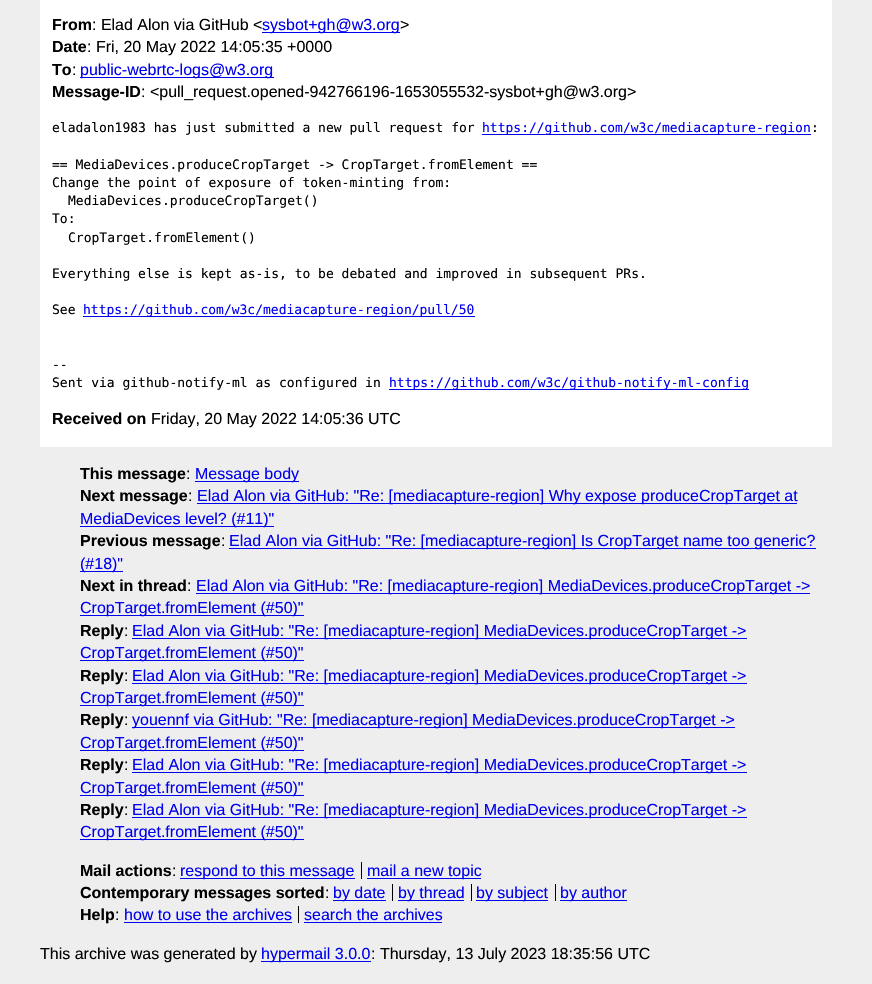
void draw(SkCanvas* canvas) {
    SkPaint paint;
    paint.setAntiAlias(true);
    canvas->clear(0xFFEEEEEE);
    paint.setColor(0xFFFFFFFF);
    canvas->drawRect(SkRect::MakeXYWH(40, 0, 792, 447), paint);
    SkFont font1(fontMgr->matchFamilyStyle("Liberation Sans", SkFontStyle::Bold()), 16);
    font1.setSubpixel(true);
    paint.setColor(0xFF000000);
    canvas->drawString("From", 52, 30, font1, paint);
    SkFont font2(fontMgr->matchFamilyStyle("Liberation Sans", SkFontStyle::Normal()), 16);
    font2.setSubpixel(true);
    canvas->drawString(": Elad Alon via GitHub <", 92, 30, font2, paint);
    paint.setColor(0xFF0000EE);
    canvas->drawRect(SkRect::MakeXYWH(262, 32, 138, 1), paint);
    canvas->drawString("sysbot+gh@w3.org", 262, 30, font2, paint);
    paint.setColor(0xFF000000);
    canvas->drawString(">", 400, 30, font2, paint);
    canvas->drawString("Date", 52, 52, font1, paint);
    canvas->drawString(": Fri, 20 May 2022 14:05:35 +0000", 87, 52, font2, paint);
    canvas->drawString("To", 52, 75, font1, paint);
    canvas->drawString(":", 72, 75, font2, paint);
    paint.setColor(0xFF0000EE);
    canvas->drawRect(SkRect::MakeXYWH(80, 77, 194, 1), paint);
    canvas->drawString("public-webrtc-logs@w3.org", 80, 75, font2, paint);
    paint.setColor(0xFF000000);
    canvas->drawString("Message-ID", 52, 97, font1, paint);
    canvas->drawString(": <pull_request.opened-942766196-1653055532-sysbot+gh@w3.org>", 141, 97, font2, paint);
    SkFont font3(fontMgr->matchFamilyStyle("DejaVu Sans Mono", SkFontStyle::Normal()), 13);
    font3.setSubpixel(true);
    canvas->drawString("eladalon1983 has just submitted a new pull request for", 52, 132, font3, paint);
    paint.setColor(0xFF0000EE);
    canvas->drawRect(SkRect::MakeXYWH(482, 134, 329, 1), paint);
    canvas->drawString("https://github.com/w3c/mediacapture-region", 482, 132, font3, paint);
    paint.setColor(0xFF000000);
    canvas->drawString(":", 811, 132, font3, paint);
    canvas->drawString("== MediaDevices.produceCropTarget -> CropTarget.fromElement ==", 52, 169, font3, paint);
    canvas->drawString("Change the point of exposure of token-minting from:", 52, 187, font3, paint);
    canvas->drawString("MediaDevices.produceCropTarget()", 68, 205, font3, paint);
    canvas->drawString("To:", 52, 223, font3, paint);
    canvas->drawString("CropTarget.fromElement()", 68, 242, font3, paint);
    canvas->drawString("Everything else is kept as-is, to be debated and improved in subsequent PRs.", 52, 278, font3, paint);
    canvas->drawString("See", 52, 314, font3, paint);
    paint.setColor(0xFF0000EE);
    canvas->drawRect(SkRect::MakeXYWH(83, 316, 392, 1), paint);
    canvas->drawString("https://github.com/w3c/mediacapture-region/pull/50", 83, 314, font3, paint);
    paint.setColor(0xFF000000);
    canvas->drawString("--", 52, 369, font3, paint);
    canvas->drawString("Sent via github-notify-ml as configured in", 52, 387, font3, paint);
    paint.setColor(0xFF0000EE);
    canvas->drawRect(SkRect::MakeXYWH(389, 389, 360, 1), paint);
    canvas->drawString("https://github.com/w3c/github-notify-ml-config", 389, 387, font3, paint);
    paint.setColor(0xFF000000);
    canvas->drawString("Received on", 52, 424, font1, paint);
    canvas->drawString("Friday, 20 May 2022 14:05:36 UTC", 151, 424, font2, paint);
    canvas->drawString("This message", 80, 479, font1, paint);
    canvas->drawString(":", 186, 479, font2, paint);
    paint.setColor(0xFF0000EE);
    canvas->drawRect(SkRect::MakeXYWH(195, 481, 104, 1), paint);
    canvas->drawString("Message body", 195, 479, font2, paint);
    paint.setColor(0xFF000000);
    canvas->drawString("Next message", 80, 501, font1, paint);
    canvas->drawString(":", 188, 501, font2, paint);
    paint.setColor(0xFF0000EE);
    canvas->drawRect(SkRect::MakeXYWH(197, 503, 600, 1), paint);
    canvas->drawString("Elad Alon via GitHub: \"Re: [mediacapture-region] Why expose produceCropTarget at", 197, 501, font2, paint);
    canvas->drawRect(SkRect::MakeXYWH(80, 526, 194, 1), paint);
    canvas->drawString("MediaDevices level? (#11)\"", 80, 524, font2, paint);
    paint.setColor(0xFF000000);
    canvas->drawString("Previous message", 80, 546, font1, paint);
    canvas->drawString(":", 221, 546, font2, paint);
    paint.setColor(0xFF0000EE);
    canvas->drawRect(SkRect::MakeXYWH(229, 548, 587, 1), paint);
    canvas->drawString("Elad Alon via GitHub: \"Re: [mediacapture-region] Is CropTarget name too generic?", 229, 546, font2, paint);
    canvas->drawRect(SkRect::MakeXYWH(80, 571, 43, 1), paint);
    canvas->drawString("(#18)\"", 80, 569, font2, paint);
    paint.setColor(0xFF000000);
    canvas->drawString("Next in thread", 80, 591, font1, paint);
    canvas->drawString(":", 187, 591, font2, paint);
    paint.setColor(0xFF0000EE);
    canvas->drawRect(SkRect::MakeXYWH(196, 593, 614, 1), paint);
    canvas->drawString("Elad Alon via GitHub: \"Re: [mediacapture-region] MediaDevices.produceCropTarget ->", 196, 591, font2, paint);
    canvas->drawRect(SkRect::MakeXYWH(80, 615, 224, 1), paint);
    canvas->drawString("CropTarget.fromElement (#50)\"", 80, 613, font2, paint);
    paint.setColor(0xFF000000);
    canvas->drawString("Reply", 80, 636, font1, paint);
    canvas->drawString(":", 124, 636, font2, paint);
    paint.setColor(0xFF0000EE);
    canvas->drawRect(SkRect::MakeXYWH(132, 638, 615, 1), paint);
    canvas->drawString("Elad Alon via GitHub: \"Re: [mediacapture-region] MediaDevices.produceCropTarget ->", 132, 636, font2, paint);
    canvas->drawRect(SkRect::MakeXYWH(80, 660, 224, 1), paint);
    canvas->drawString("CropTarget.fromElement (#50)\"", 80, 658, font2, paint);
    paint.setColor(0xFF000000);
    canvas->drawString("Reply", 80, 681, font1, paint);
    canvas->drawString(":", 124, 681, font2, paint);
    paint.setColor(0xFF0000EE);
    canvas->drawRect(SkRect::MakeXYWH(132, 683, 615, 1), paint);
    canvas->drawString("Elad Alon via GitHub: \"Re: [mediacapture-region] MediaDevices.produceCropTarget ->", 132, 681, font2, paint);
    canvas->drawRect(SkRect::MakeXYWH(80, 705, 224, 1), paint);
    canvas->drawString("CropTarget.fromElement (#50)\"", 80, 703, font2, paint);
    paint.setColor(0xFF000000);
    canvas->drawString("Reply", 80, 725, font1, paint);
    canvas->drawString(":", 124, 725, font2, paint);
    paint.setColor(0xFF0000EE);
    canvas->drawRect(SkRect::MakeXYWH(132, 727, 603, 1), paint);
    canvas->drawString("youennf via GitHub: \"Re: [mediacapture-region] MediaDevices.produceCropTarget ->", 132, 725, font2, paint);
    canvas->drawRect(SkRect::MakeXYWH(80, 750, 224, 1), paint);
    canvas->drawString("CropTarget.fromElement (#50)\"", 80, 748, font2, paint);
    paint.setColor(0xFF000000);
    canvas->drawString("Reply", 80, 770, font1, paint);
    canvas->drawString(":", 124, 770, font2, paint);
    paint.setColor(0xFF0000EE);
    canvas->drawRect(SkRect::MakeXYWH(132, 772, 615, 1), paint);
    canvas->drawString("Elad Alon via GitHub: \"Re: [mediacapture-region] MediaDevices.produceCropTarget ->", 132, 770, font2, paint);
    canvas->drawRect(SkRect::MakeXYWH(80, 795, 224, 1), paint);
    canvas->drawString("CropTarget.fromElement (#50)\"", 80, 793, font2, paint);
    paint.setColor(0xFF000000);
    canvas->drawString("Reply", 80, 815, font1, paint);
    canvas->drawString(":", 124, 815, font2, paint);
    paint.setColor(0xFF0000EE);
    canvas->drawRect(SkRect::MakeXYWH(132, 817, 615, 1), paint);
    canvas->drawString("Elad Alon via GitHub: \"Re: [mediacapture-region] MediaDevices.produceCropTarget ->", 132, 815, font2, paint);
    canvas->drawRect(SkRect::MakeXYWH(80, 839, 224, 1), paint);
    canvas->drawString("CropTarget.fromElement (#50)\"", 80, 837, font2, paint);
    paint.setColor(0xFF000000);
    canvas->drawString("Mail actions", 80, 876, font1, paint);
    canvas->drawString(":", 172, 876, font2, paint);
    paint.setColor(0xFF0000EE);
    canvas->drawRect(SkRect::MakeXYWH(180, 878, 175, 1), paint);
    canvas->drawString("respond to this message", 180, 876, font2, paint);
    canvas->drawRect(SkRect::MakeXYWH(367, 878, 114, 1), paint);
    canvas->drawString("mail a new topic", 367, 876, font2, paint);
    paint.setColor(0xFF000000);
    canvas->drawRect(SkRect::MakeXYWH(361, 862, 1, 17), paint);
    canvas->drawString("Contemporary messages sorted", 80, 898, font1, paint);
    canvas->drawString(":", 325, 898, font2, paint);
    paint.setColor(0xFF0000EE);
    canvas->drawRect(SkRect::MakeXYWH(333, 900, 53, 1), paint);
    canvas->drawString("by date", 333, 898, font2, paint);
    canvas->drawRect(SkRect::MakeXYWH(398, 900, 66, 1), paint);
    canvas->drawString("by thread", 398, 898, font2, paint);
    paint.setColor(0xFF000000);
    canvas->drawRect(SkRect::MakeXYWH(392, 884, 1, 17), paint);
    paint.setColor(0xFF0000EE);
    canvas->drawRect(SkRect::MakeXYWH(476, 900, 72, 1), paint);
    canvas->drawString("by subject", 476, 898, font2, paint);
    paint.setColor(0xFF000000);
    canvas->drawRect(SkRect::MakeXYWH(471, 884, 1, 17), paint);
    paint.setColor(0xFF0000EE);
    canvas->drawRect(SkRect::MakeXYWH(560, 900, 67, 1), paint);
    canvas->drawString("by author", 560, 898, font2, paint);
    paint.setColor(0xFF000000);
    canvas->drawRect(SkRect::MakeXYWH(555, 884, 1, 17), paint);
    canvas->drawString("Help", 80, 920, font1, paint);
    canvas->drawString(":", 115, 920, font2, paint);
    paint.setColor(0xFF0000EE);
    canvas->drawString("how to use the archives", 124, 920, font2, paint);
    canvas->drawRect(SkRect::MakeXYWH(124, 922, 168, 1), paint);
    canvas->drawString("search the archives", 304, 920, font2, paint);
    paint.setColor(0xFF000000);
    canvas->drawRect(SkRect::MakeXYWH(298, 906, 1, 17), paint);
    paint.setColor(0xFF0000EE);
    canvas->drawRect(SkRect::MakeXYWH(304, 922, 138, 1), paint);
    paint.setColor(0xFF000000);
    canvas->drawString("This archive was generated by", 40, 959, font2, paint);
    paint.setColor(0xFF0000EE);
    canvas->drawRect(SkRect::MakeXYWH(261, 961, 110, 1), paint);
    canvas->drawString("hypermail 3.0.0", 261, 959, font2, paint);
    paint.setColor(0xFF000000);
    canvas->drawString(": Thursday, 13 July 2023 18:35:56 UTC", 371, 959, font2, paint);
}
